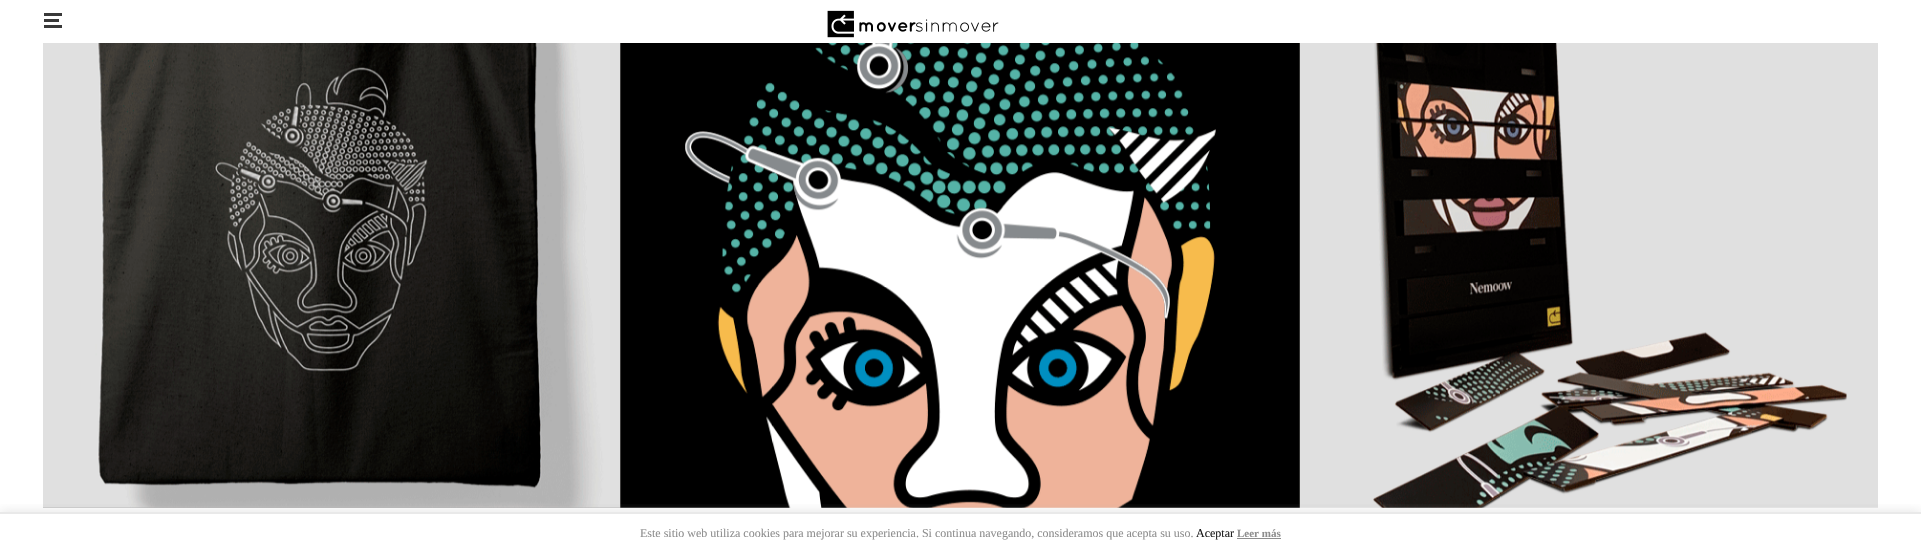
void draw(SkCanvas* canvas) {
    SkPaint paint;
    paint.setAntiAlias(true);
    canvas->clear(0xFFFFFFFF);
    paint.setColor(0xFF393939);
    canvas->drawRect(SkRect::MakeXYWH(44, 13, 18, 3), paint);
    canvas->drawRect(SkRect::MakeXYWH(44, 19, 15, 3), paint);
    canvas->drawRect(SkRect::MakeXYWH(44, 25, 18, 3), paint);
    canvas->drawImageRect(SkImages::DeferredFromEncodedData(SkData::MakeFromFileName("img1.png")), SkRect::MakeXYWH(827, 10, 172, 28), SkSamplingOptions());
    canvas->drawImageRect(SkImages::DeferredFromEncodedData(SkData::MakeFromFileName("img2.png")), SkRect::MakeXYWH(43, 43, 1835, 465), SkSamplingOptions());
    canvas->save();
    canvas->clipRect(SkRect::MakeXYWH(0, 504, 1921, 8));
    paint.setColor(0x4DACABAB);
    paint.setMaskFilter(SkMaskFilter::MakeBlur(kNormal_SkBlurStyle, 5));
    canvas->drawRect(SkRect::MakeXYWH(0, 511, 1921, 39), paint);
    paint.setMaskFilter(nullptr);
    canvas->restore();
    paint.setColor(0xFFE9E9E9);
    canvas->drawRect(SkRect::MakeXYWH(0, 512, 1921, 2), paint);
    SkFont font1(fontMgr->matchFamilyStyle("Liberation Serif", SkFontStyle::Normal()), 12);
    font1.setSubpixel(true);
    paint.setColor(0xFF8E8E8E);
    canvas->drawString("Este sitio web utiliza cookies para mejorar su experiencia. Si continua navegando, consideramos que acepta su uso.", 640, 537, font1, paint);
    paint.setColor(0xFF1A1A1A);
    canvas->drawString("Aceptar", 1196, 537, font1, paint);
    paint.setColor(0xFF8E8E8E);
    canvas->drawRect(SkRect::MakeXYWH(1237, 538, 44, 1), paint);
    SkFont font2(fontMgr->matchFamilyStyle("Liberation Serif", SkFontStyle::Bold()), 11);
    font2.setSubpixel(true);
    canvas->drawString("Leer más", 1237, 537, font2, paint);
}
